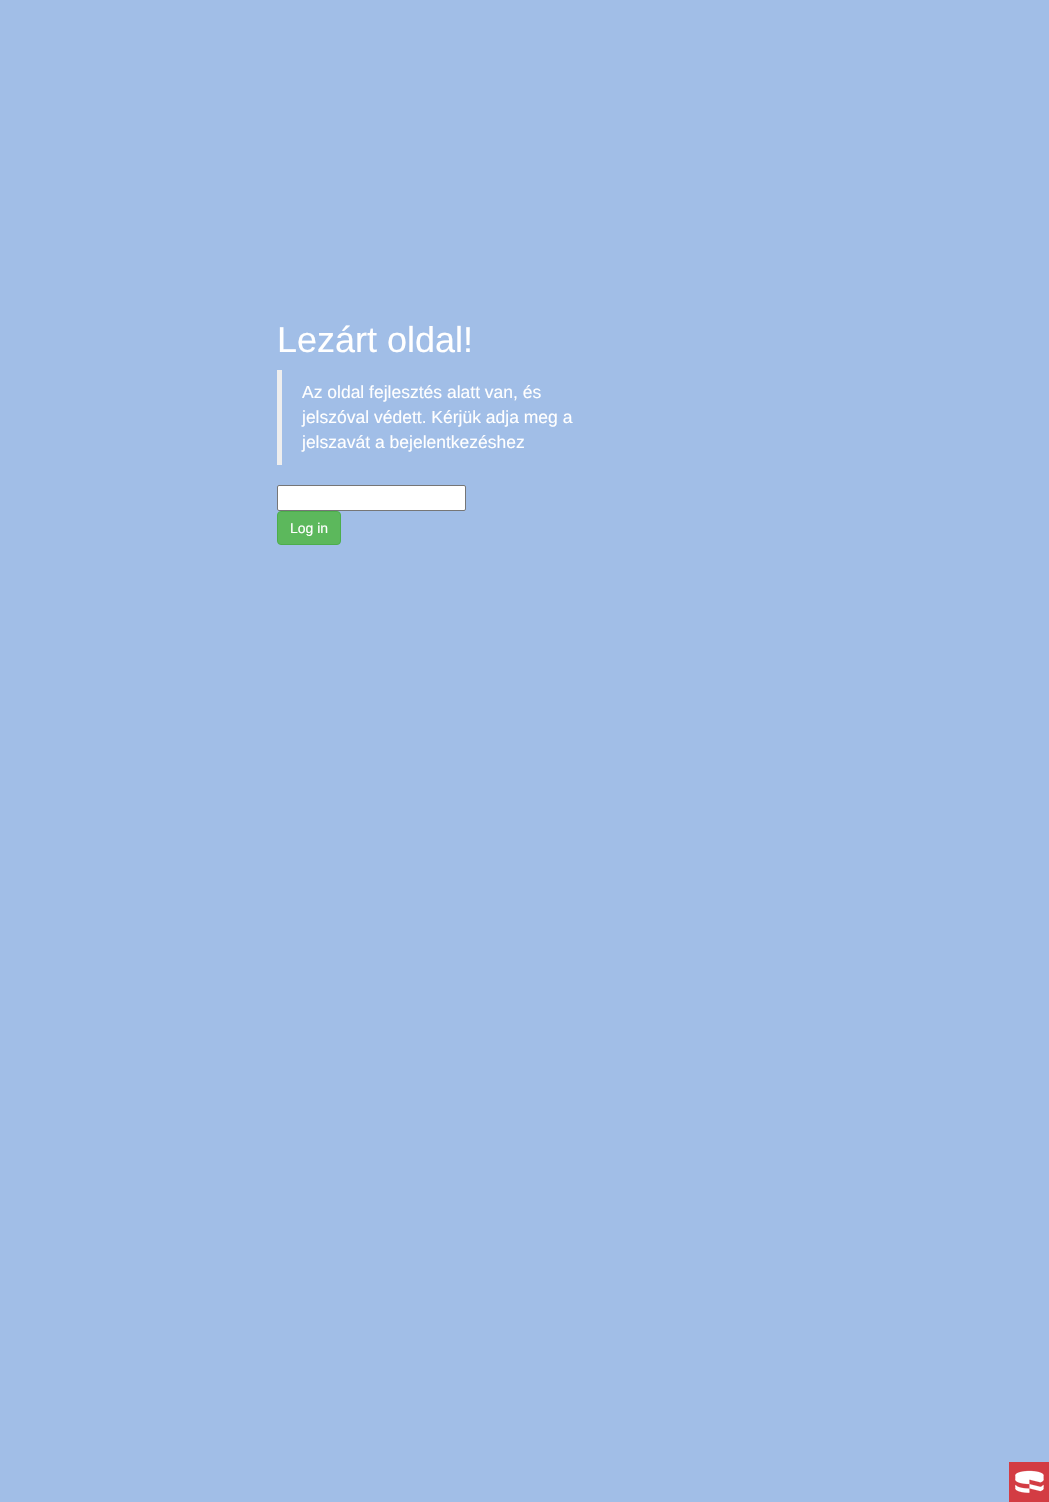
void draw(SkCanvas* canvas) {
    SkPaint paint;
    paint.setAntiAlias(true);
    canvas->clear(0xFFA1BEE7);
    SkFont font1(fontMgr->matchFamilyStyle("Liberation Sans", SkFontStyle::Normal()), 36);
    font1.setSubpixel(true);
    paint.setColor(0xFFFFFFFF);
    canvas->drawString("Lezárt oldal!", 277, 352, font1, paint);
    paint.setColor(0xFFEEEEEE);
    canvas->drawRect(SkRect::MakeXYWH(277, 370, 5, 95), paint);
    SkFont font2(fontMgr->matchFamilyStyle("Liberation Sans", SkFontStyle::Normal()), 17.5f);
    font2.setSubpixel(true);
    paint.setColor(0xFFFFFFFF);
    canvas->drawString("Az oldal fejlesztés alatt van, és", 302, 398, font2, paint);
    canvas->drawString("jelszóval védett. Kérjük adja meg a", 302, 423, font2, paint);
    canvas->drawString("jelszavát a bejelentkezéshez", 302, 448, font2, paint);
    canvas->drawRoundRect(SkRect::MakeXYWH(277.5f, 485.5f, 188, 25), 1.5f, 1.5f, paint);
    paint.setStyle(SkPaint::kStroke_Style);
    paint.setStrokeWidth(1);
    paint.setColor(0xFF767676);
    canvas->drawRoundRect(SkRect::MakeXYWH(277.5f, 485.5f, 188, 25), 1.5f, 1.5f, paint);
    paint.setStyle(SkPaint::kFill_Style);
    paint.setColor(0xFF5CB85C);
    canvas->drawRoundRect(SkRect::MakeXYWH(277.5f, 511.5f, 63, 33), 3.5f, 3.5f, paint);
    paint.setStyle(SkPaint::kStroke_Style);
    paint.setColor(0xFF4CAE4C);
    canvas->drawRoundRect(SkRect::MakeXYWH(277.5f, 511.5f, 63, 33), 3.5f, 3.5f, paint);
    SkFont font3(fontMgr->matchFamilyStyle("Liberation Sans", SkFontStyle::Normal()), 14);
    font3.setSubpixel(true);
    paint.setStyle(SkPaint::kFill_Style);
    paint.setColor(0xFFFFFFFF);
    canvas->drawString("Log in", 290, 533, font3, paint);
    canvas->drawImageRect(SkImages::DeferredFromEncodedData(SkData::MakeFromFileName("img1.png")), SkRect::MakeXYWH(1009, 1462, 40, 40), SkSamplingOptions());
}
